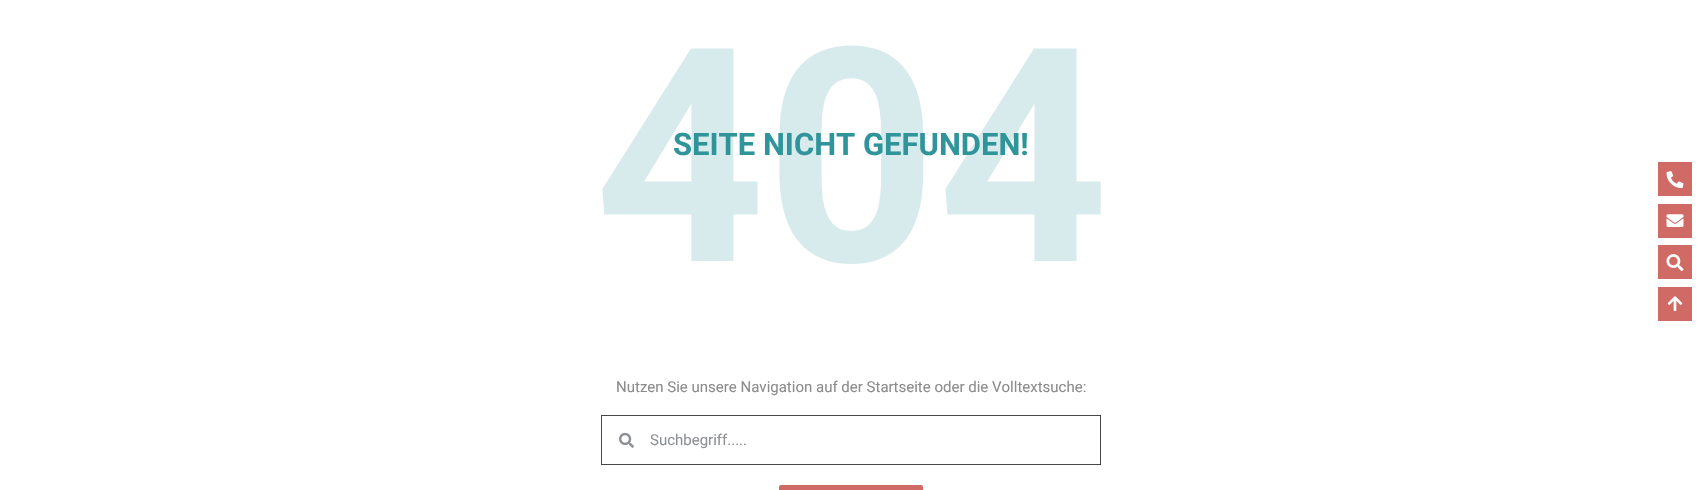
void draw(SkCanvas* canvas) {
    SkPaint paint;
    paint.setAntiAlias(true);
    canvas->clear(0xFFFFFFFF);
    SkFont font1(fontMgr->matchFamilyStyle("Roboto", SkFontStyle::Bold()), 299);
    font1.setSubpixel(true);
    paint.setColor(0xFFD8EBEC);
    canvas->drawString("404", 594, 261, font1, paint);
    SkFont font2(fontMgr->matchFamilyStyle("Roboto", SkFontStyle::Bold()), 31);
    font2.setSubpixel(true);
    paint.setColor(0xFF2F959A);
    canvas->drawString("SEITE NICHT GEFUNDEN!", 673, 155, font2, paint);
    SkFont font3(fontMgr->matchFamilyStyle("Roboto", SkFontStyle::Normal()), 15);
    font3.setSubpixel(true);
    paint.setColor(0xFF8C8C8C);
    canvas->drawString("Nutzen Sie unsere Navigation auf der Startseite oder die Volltextsuche:", 616, 392, font3, paint);
    paint.setStyle(SkPaint::kStroke_Style);
    paint.setStrokeWidth(1);
    paint.setColor(0xFF474747);
    canvas->drawRect(SkRect::MakeXYWH(601.5f, 415.5f, 499, 49), paint);
    canvas->drawImageRect(SkImages::DeferredFromEncodedData(SkData::MakeFromFileName("img1.png")), SkRect::MakeXYWH(619, 432, 15, 16), SkSamplingOptions());
    paint.setStyle(SkPaint::kFill_Style);
    paint.setColor(0xFF8C8F93);
    canvas->drawString("Suchbegriff.....", 650, 445, font3, paint);
    paint.setColor(0xFFD06A65);
    canvas->drawRoundRect(SkRect::MakeXYWH(779, 485, 144, 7), 2, 2, paint);
    canvas->drawRect(SkRect::MakeXYWH(1658, 162, 34, 34), paint);
    canvas->drawImageRect(SkImages::DeferredFromEncodedData(SkData::MakeFromFileName("img2.png")), SkRect::MakeXYWH(1666, 171, 18, 18), SkSamplingOptions());
    canvas->drawRect(SkRect::MakeXYWH(1658, 204, 34, 34), paint);
    canvas->drawImageRect(SkImages::DeferredFromEncodedData(SkData::MakeFromFileName("img3.png")), SkRect::MakeXYWH(1666, 214, 18, 13), SkSamplingOptions());
    canvas->drawRect(SkRect::MakeXYWH(1658, 245, 34, 34), paint);
    canvas->drawImageRect(SkImages::DeferredFromEncodedData(SkData::MakeFromFileName("img4.png")), SkRect::MakeXYWH(1666, 254, 18, 18), SkSamplingOptions());
    canvas->drawRect(SkRect::MakeXYWH(1658, 287, 34, 34), paint);
    canvas->drawImageRect(SkImages::DeferredFromEncodedData(SkData::MakeFromFileName("img5.png")), SkRect::MakeXYWH(1667, 296, 16, 16), SkSamplingOptions());
}
